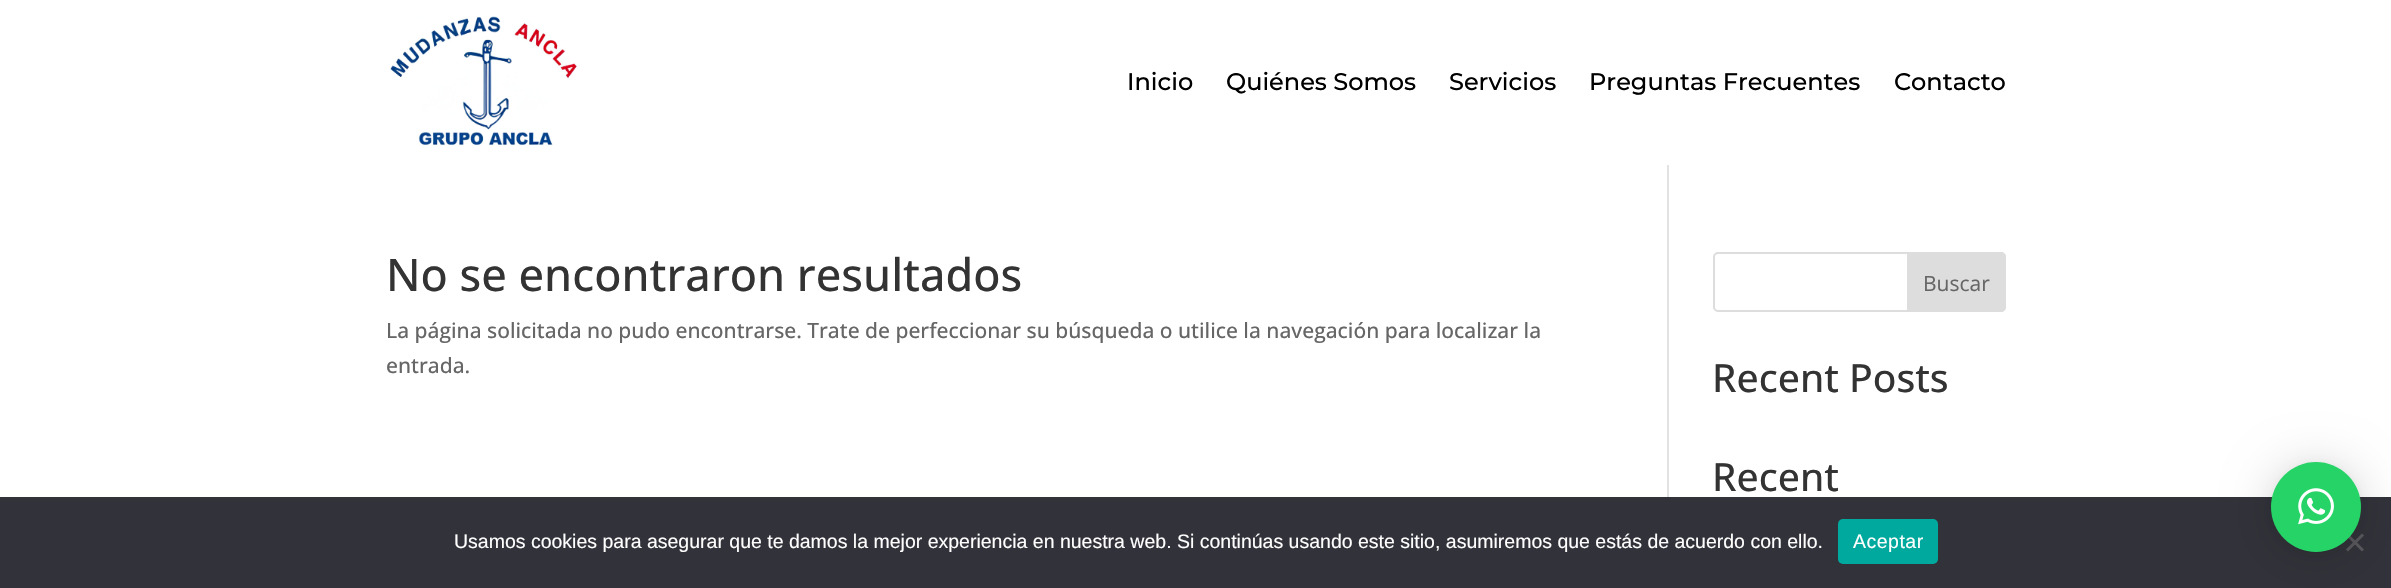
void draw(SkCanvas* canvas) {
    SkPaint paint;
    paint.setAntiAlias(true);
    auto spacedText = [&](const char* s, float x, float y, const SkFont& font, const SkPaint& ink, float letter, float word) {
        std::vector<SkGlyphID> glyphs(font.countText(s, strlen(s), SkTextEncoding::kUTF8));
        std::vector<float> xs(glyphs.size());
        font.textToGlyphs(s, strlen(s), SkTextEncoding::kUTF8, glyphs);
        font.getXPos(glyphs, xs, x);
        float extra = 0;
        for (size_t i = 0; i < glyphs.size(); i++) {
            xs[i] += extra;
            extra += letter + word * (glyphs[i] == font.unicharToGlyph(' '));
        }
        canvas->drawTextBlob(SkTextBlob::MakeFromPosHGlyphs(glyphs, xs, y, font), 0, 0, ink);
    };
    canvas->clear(0xFFFFFFFF);
    canvas->drawImageRect(SkImages::DeferredFromEncodedData(SkData::MakeFromFileName("img1.png")), SkRect::MakeXYWH(390, 16, 187, 130), SkSamplingOptions());
    SkFont font1(fontMgr->matchFamilyStyle("Montserrat", SkFontStyle(500, SkFontStyle::kNormal_Width, SkFontStyle::kUpright_Slant)), 24);
    font1.setSubpixel(true);
    paint.setColor(0xFF000000);
    canvas->drawString("Inicio", 1127, 90, font1, paint);
    canvas->drawString("Quiénes Somos", 1226, 90, font1, paint);
    canvas->drawString("Servicios", 1449, 90, font1, paint);
    canvas->drawString("Preguntas Frecuentes", 1589, 90, font1, paint);
    canvas->drawString("Contacto", 1894, 90, font1, paint);
    paint.setColor(0xFFE2E2E2);
    canvas->drawRect(SkRect::MakeXYWH(1667, 165, 2, 332), paint);
    SkFont font2(fontMgr->matchFamilyStyle("Open Sans", SkFontStyle(500, SkFontStyle::kNormal_Width, SkFontStyle::kUpright_Slant)), 45);
    font2.setSubpixel(true);
    paint.setColor(0xFF333333);
    canvas->drawString("No se encontraron resultados", 386, 291, font2, paint);
    SkFont font3(fontMgr->matchFamilyStyle("Open Sans", SkFontStyle(500, SkFontStyle::kNormal_Width, SkFontStyle::kUpright_Slant)), 21);
    font3.setSubpixel(true);
    paint.setColor(0xFF666666);
    canvas->drawString("La página solicitada no pudo encontrarse. Trate de perfeccionar su búsqueda o utilice la navegación para localizar la", 386, 338, font3, paint);
    canvas->drawString("entrada.", 386, 373, font3, paint);
    paint.setStyle(SkPaint::kStroke_Style);
    paint.setStrokeWidth(2);
    paint.setColor(0xFFDDDDDD);
    canvas->drawRoundRect(SkRect::MakeXYWH(1714, 253, 291, 58), 4, 4, paint);
    paint.setStyle(SkPaint::kFill_Style);
    canvas->drawPath(SkPathBuilder().moveTo(1908, 253).lineTo(2001, 253).cubicTo(2003, 253, 2005, 255, 2005, 257).lineTo(2005, 307).cubicTo(2005, 309, 2003, 311, 2001, 311).lineTo(1908, 311).close().detach(), paint);
    paint.setStyle(SkPaint::kStroke_Style);
    canvas->drawPath(SkPathBuilder().moveTo(1908, 253).lineTo(2001, 253).cubicTo(2003, 253, 2005, 255, 2005, 257).lineTo(2005, 307).cubicTo(2005, 309, 2003, 311, 2001, 311).lineTo(1908, 311).close().detach(), paint);
    SkFont font4(fontMgr->matchFamilyStyle("Open Sans", SkFontStyle::Normal()), 21);
    font4.setSubpixel(true);
    paint.setStyle(SkPaint::kFill_Style);
    paint.setColor(0xFF666666);
    canvas->drawString("Buscar", 1923, 291, font4, paint);
    SkFont font5(fontMgr->matchFamilyStyle("Open Sans", SkFontStyle(500, SkFontStyle::kNormal_Width, SkFontStyle::kUpright_Slant)), 39);
    font5.setSubpixel(true);
    paint.setColor(0xFF333333);
    canvas->drawString("Recent Posts", 1712, 392, font5, paint);
    canvas->drawString("Recent", 1712, 491, font5, paint);
    paint.setColor(0xFF32323A);
    canvas->drawRect(SkRect::MakeXYWH(0, 497, 2391, 91), paint);
    paint.setColor(0xFF59595D);
    canvas->drawPath(SkPathBuilder().moveTo(2362, 533.5f).lineTo(2364, 535.5f).lineTo(2348, 551.5f).lineTo(2346, 549.5f).close().detach(), paint);
    canvas->drawPath(SkPathBuilder().moveTo(2346, 535.5f).lineTo(2348, 533.5f).lineTo(2364, 549.5f).lineTo(2362, 551.5f).close().detach(), paint);
    paint.setColor(0x29000000);
    paint.setMaskFilter(SkMaskFilter::MakeBlur(kNormal_SkBlurStyle, 24));
    canvas->drawRoundRect(SkRect::MakeXYWH(2271, 465, 90, 90), 45, 45, paint);
    paint.setMaskFilter(nullptr);
    paint.setColor(0x0F000000);
    paint.setMaskFilter(SkMaskFilter::MakeBlur(kNormal_SkBlurStyle, 4.5f));
    canvas->drawRoundRect(SkRect::MakeXYWH(2271, 464, 90, 90), 45, 45, paint);
    paint.setMaskFilter(nullptr);
    paint.setColor(0xFF25D366);
    canvas->drawCircle(2316, 507, 45, paint);
    canvas->drawImageRect(SkImages::DeferredFromEncodedData(SkData::MakeFromFileName("img2.png")), SkRect::MakeXYWH(2298, 488, 36, 37), SkSamplingOptions());
    SkFont font6(fontMgr->matchFamilyStyle("Liberation Sans", SkFontStyle::Normal()), 19.5f);
    font6.setSubpixel(true);
    paint.setColor(0xFFFFFFFF);
    canvas->drawString("Usamos cookies para asegurar que te damos la mejor experiencia en nuestra web. Si continúas usando este sitio, asumiremos que estás de acuerdo con ello.", 454, 548, font6, paint);
    paint.setColor(0xFF00A99D);
    canvas->drawRoundRect(SkRect::MakeXYWH(1838, 519, 100, 45), 5, 5, paint);
    paint.setColor(0xFFFFFFFF);
    spacedText("Aceptar", 1853, 548, font6, paint, 0.5f, 0);
}
